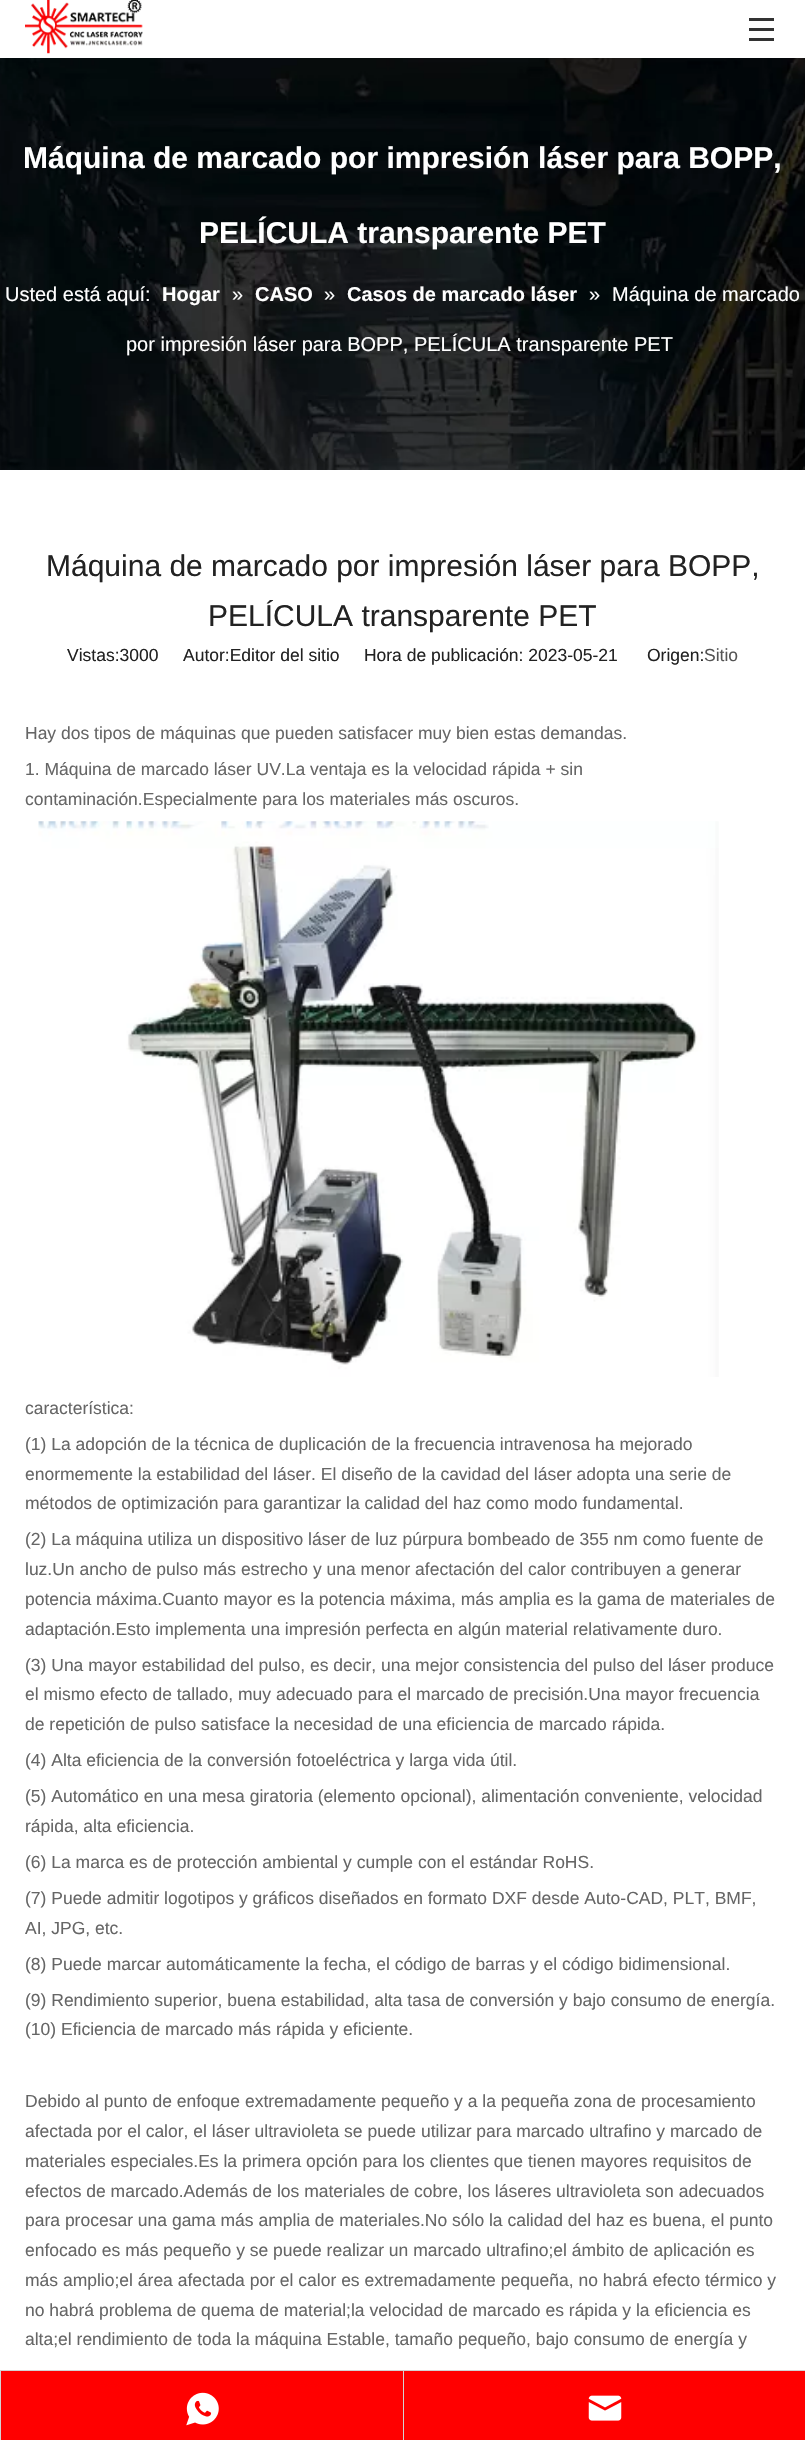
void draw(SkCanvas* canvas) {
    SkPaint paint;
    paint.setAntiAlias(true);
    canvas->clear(0xFFFFFFFF);
    canvas->drawImageRect(SkImages::DeferredFromEncodedData(SkData::MakeFromFileName("img1.png")), SkRect::MakeXYWH(25, 0, 118, 54), SkSamplingOptions());
    paint.setColor(0xFF333333);
    canvas->drawRect(SkRect::MakeXYWH(749, 18, 25, 3), paint);
    canvas->drawRect(SkRect::MakeXYWH(749, 28, 25, 3), paint);
    canvas->drawRect(SkRect::MakeXYWH(749, 38, 25, 3), paint);
    canvas->drawImageRect(SkImages::DeferredFromEncodedData(SkData::MakeFromFileName("img2.png")), SkRect::MakeXYWH(0, 58, 805, 412), SkSamplingOptions());
    SkFont font1(fontMgr->matchFamilyStyle("Liberation Sans", SkFontStyle::Bold()), 30);
    font1.setSubpixel(true);
    paint.setColor(0xFFFFFFFF);
    canvas->drawString("Máquina de marcado por impresión láser para BOPP,", 23, 168, font1, paint);
    canvas->drawString("PELÍCULA transparente PET", 199, 243, font1, paint);
    SkFont font2(fontMgr->matchFamilyStyle("Liberation Sans", SkFontStyle::Normal()), 20);
    font2.setSubpixel(true);
    canvas->drawString("Usted está aquí:", 5, 301, font2, paint);
    SkFont font3(fontMgr->matchFamilyStyle("Liberation Sans", SkFontStyle::Bold()), 20);
    font3.setSubpixel(true);
    canvas->drawString("Hogar", 162, 301, font3, paint);
    canvas->drawString("»", 232, 301, font2, paint);
    canvas->drawString("CASO", 255, 301, font3, paint);
    canvas->drawString("»", 324, 301, font2, paint);
    canvas->drawString("Casos de marcado láser", 347, 301, font3, paint);
    canvas->drawString("»", 589, 301, font2, paint);
    canvas->drawString("Máquina de marcado", 612, 301, font2, paint);
    canvas->drawString("por impresión láser para BOPP, PELÍCULA transparente PET", 126, 351, font2, paint);
    SkFont font4(fontMgr->matchFamilyStyle("Liberation Sans", SkFontStyle::Normal()), 30);
    font4.setSubpixel(true);
    paint.setColor(0xFF222222);
    canvas->drawString("Máquina de marcado por impresión láser para BOPP,", 46, 576, font4, paint);
    canvas->drawString("PELÍCULA transparente PET", 208, 626, font4, paint);
    SkFont font5(fontMgr->matchFamilyStyle("Liberation Sans", SkFontStyle::Normal()), 17.5f);
    font5.setSubpixel(true);
    canvas->drawString("Vistas:3000", 67, 661, font5, paint);
    canvas->drawString("Autor:Editor del sitio     Hora de publicación: 2023-05-21      Origen:", 183, 661, font5, paint);
    paint.setColor(0xFF545454);
    canvas->drawString("Sitio", 704, 661, font5, paint);
    paint.setColor(0xFF666666);
    canvas->drawString("Hay dos tipos de máquinas que pueden satisfacer muy bien estas demandas.", 25, 739, font5, paint);
    canvas->drawString("1. Máquina de marcado láser UV.La ventaja es la velocidad rápida + sin", 25, 775, font5, paint);
    canvas->drawString("contaminación.Especialmente para los materiales más oscuros.", 25, 805, font5, paint);
    canvas->drawImageRect(SkImages::DeferredFromEncodedData(SkData::MakeFromFileName("img3.png")), SkRect::MakeXYWH(38, 821, 681, 556), SkSamplingOptions());
    canvas->drawString("característica:", 25, 1414, font5, paint);
    canvas->drawString("(1) La adopción de la técnica de duplicación de la frecuencia intravenosa ha mejorado", 25, 1450, font5, paint);
    canvas->drawString("enormemente la estabilidad del láser. El diseño de la cavidad del láser adopta una serie de", 25, 1480, font5, paint);
    canvas->drawString("métodos de optimización para garantizar la calidad del haz como modo fundamental.", 25, 1509, font5, paint);
    canvas->drawString("(2) La máquina utiliza un dispositivo láser de luz púrpura bombeado de 355 nm como fuente de", 25, 1545, font5, paint);
    canvas->drawString("luz.Un ancho de pulso más estrecho y una menor afectación del calor contribuyen a generar", 25, 1575, font5, paint);
    canvas->drawString("potencia máxima.Cuanto mayor es la potencia máxima, más amplia es la gama de materiales de", 25, 1605, font5, paint);
    canvas->drawString("adaptación.Esto implementa una impresión perfecta en algún material relativamente duro.", 25, 1635, font5, paint);
    canvas->drawString("(3) Una mayor estabilidad del pulso, es decir, una mejor consistencia del pulso del láser produce", 25, 1671, font5, paint);
    canvas->drawString("el mismo efecto de tallado, muy adecuado para el marcado de precisión.Una mayor frecuencia", 25, 1700, font5, paint);
    canvas->drawString("de repetición de pulso satisface la necesidad de una eficiencia de marcado rápida.", 25, 1730, font5, paint);
    canvas->drawString("(4) Alta eficiencia de la conversión fotoeléctrica y larga vida útil.", 25, 1766, font5, paint);
    canvas->drawString("(5) Automático en una mesa giratoria (elemento opcional), alimentación conveniente, velocidad", 25, 1802, font5, paint);
    canvas->drawString("rápida, alta eficiencia.", 25, 1832, font5, paint);
    canvas->drawString("(6) La marca es de protección ambiental y cumple con el estándar RoHS.", 25, 1868, font5, paint);
    canvas->drawString("(7) Puede admitir logotipos y gráficos diseñados en formato DXF desde Auto-CAD, PLT, BMF,", 25, 1904, font5, paint);
    canvas->drawString("AI, JPG, etc.", 25, 1934, font5, paint);
    canvas->drawString("(8) Puede marcar automáticamente la fecha, el código de barras y el código bidimensional.", 25, 1970, font5, paint);
    canvas->drawString("(9) Rendimiento superior, buena estabilidad, alta tasa de conversión y bajo consumo de energía.", 25, 2006, font5, paint);
    canvas->drawString("(10) Eficiencia de marcado más rápida y eficiente.", 25, 2035, font5, paint);
    canvas->drawString("Debido al punto de enfoque extremadamente pequeño y a la pequeña zona de procesamiento", 25, 2107, font5, paint);
    canvas->drawString("afectada por el calor, el láser ultravioleta se puede utilizar para marcado ultrafino y marcado de", 25, 2137, font5, paint);
    canvas->drawString("materiales especiales.Es la primera opción para los clientes que tienen mayores requisitos de", 25, 2167, font5, paint);
    canvas->drawString("efectos de marcado.Además de los materiales de cobre, los láseres ultravioleta son adecuados", 25, 2197, font5, paint);
    canvas->drawString("para procesar una gama más amplia de materiales.No sólo la calidad del haz es buena, el punto", 25, 2226, font5, paint);
    canvas->drawString("enfocado es más pequeño y se puede realizar un marcado ultrafino;el ámbito de aplicación es", 25, 2256, font5, paint);
    canvas->drawString("más amplio;el área afectada por el calor es extremadamente pequeña, no habrá efecto térmico y", 25, 2286, font5, paint);
    canvas->drawString("no habrá problema de quema de material;la velocidad de marcado es rápida y la eficiencia es", 25, 2316, font5, paint);
    canvas->drawString("alta;el rendimiento de toda la máquina Estable, tamaño pequeño, bajo consumo de energía y", 25, 2345, font5, paint);
    paint.setColor(0xFFD3D3D3);
    canvas->drawRect(SkRect::MakeXYWH(0, 2370, 805, 1), paint);
    canvas->drawRect(SkRect::MakeXYWH(0, 2371, 1, 69), paint);
    paint.setColor(0xFFFF0000);
    canvas->drawRect(SkRect::MakeXYWH(1, 2371, 402, 69), paint);
    canvas->drawImageRect(SkImages::DeferredFromEncodedData(SkData::MakeFromFileName("img4.png")), SkRect::MakeXYWH(186, 2392, 33, 34), SkSamplingOptions());
    paint.setColor(0xFFD3D3D3);
    canvas->drawRect(SkRect::MakeXYWH(403, 2371, 1, 69), paint);
    paint.setColor(0xFFFF0000);
    canvas->drawRect(SkRect::MakeXYWH(404, 2371, 401, 69), paint);
    canvas->drawImageRect(SkImages::DeferredFromEncodedData(SkData::MakeFromFileName("img5.png")), SkRect::MakeXYWH(588, 2395, 34, 26), SkSamplingOptions());
}
